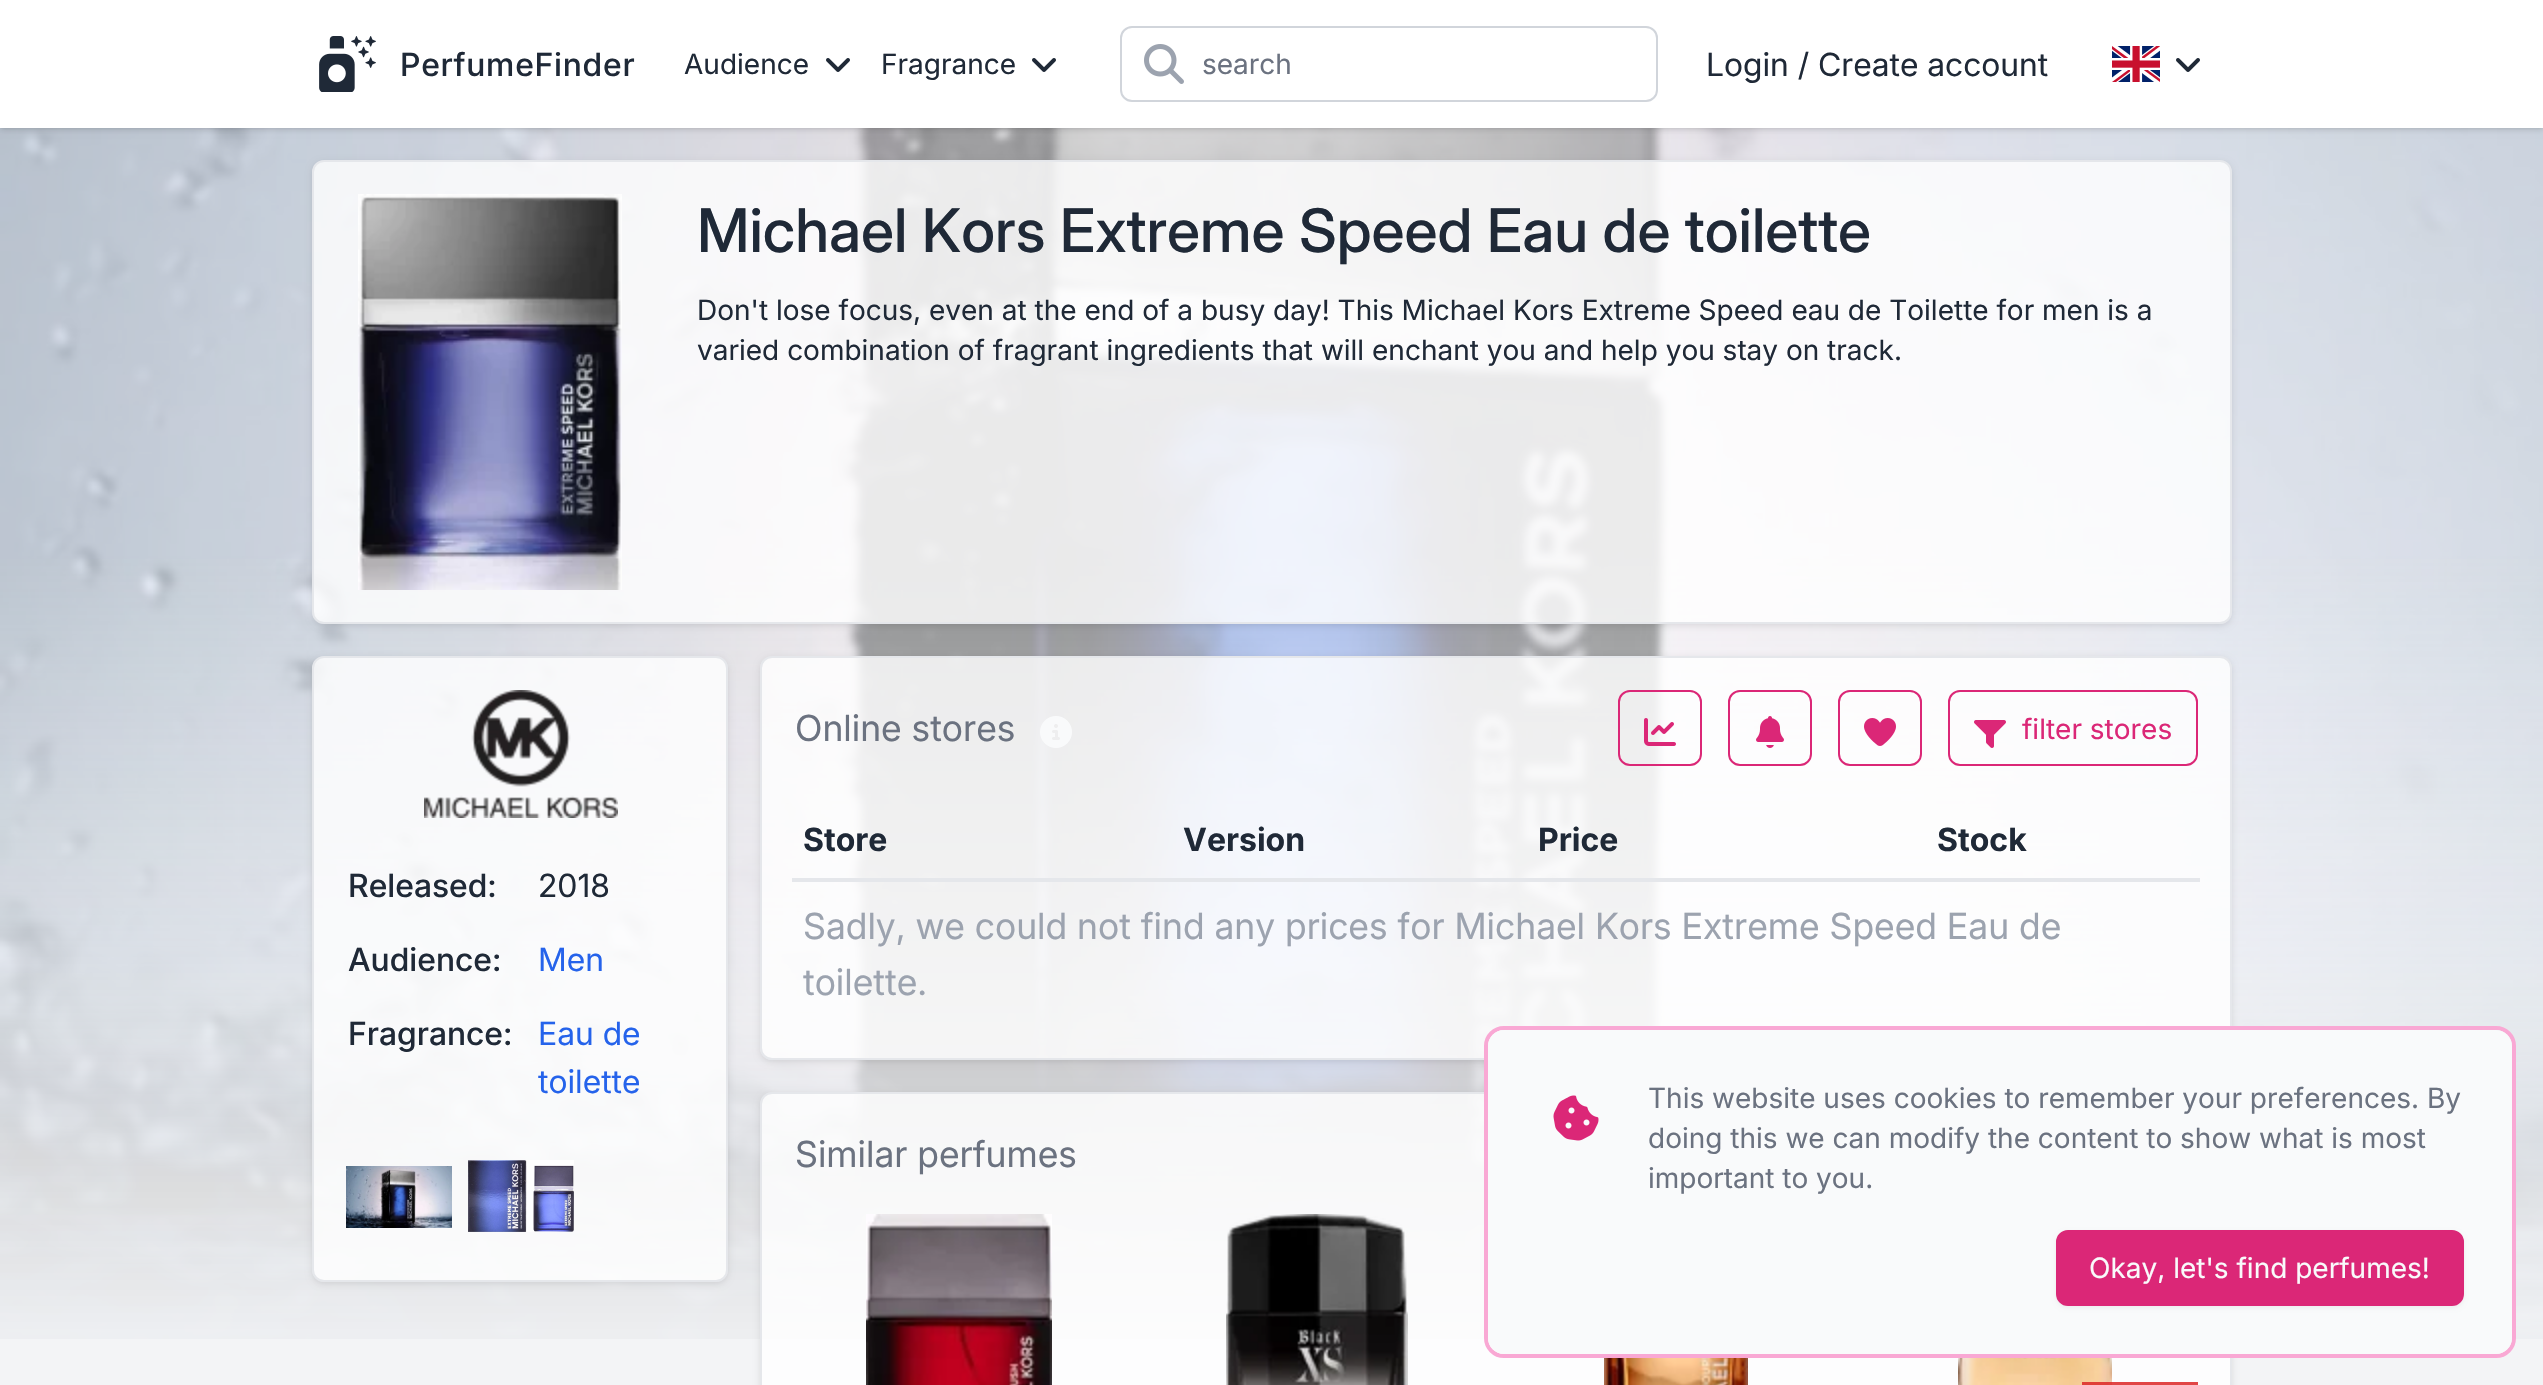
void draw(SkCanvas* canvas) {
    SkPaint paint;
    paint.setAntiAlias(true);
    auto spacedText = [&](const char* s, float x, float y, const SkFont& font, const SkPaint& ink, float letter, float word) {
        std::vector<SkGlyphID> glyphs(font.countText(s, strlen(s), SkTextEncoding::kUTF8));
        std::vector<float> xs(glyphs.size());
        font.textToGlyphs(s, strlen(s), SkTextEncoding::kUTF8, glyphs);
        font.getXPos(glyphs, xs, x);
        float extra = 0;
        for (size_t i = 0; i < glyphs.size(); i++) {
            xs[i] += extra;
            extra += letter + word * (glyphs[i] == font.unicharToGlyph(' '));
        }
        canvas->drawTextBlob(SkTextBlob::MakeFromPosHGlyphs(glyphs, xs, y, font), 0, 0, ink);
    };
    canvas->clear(0xFFF3F4F6);
    canvas->drawImageRect(SkImages::DeferredFromEncodedData(SkData::MakeFromFileName("img5.png")), SkRect::MakeXYWH(0, 128, 2543, 1211), SkSamplingOptions());
    paint.setColor(0x1A000000);
    paint.setMaskFilter(SkMaskFilter::MakeBlur(kNormal_SkBlurStyle, 2));
    canvas->drawRect(SkRect::MakeXYWH(2, 4, 2540, 124), paint);
    paint.setMaskFilter(nullptr);
    paint.setMaskFilter(SkMaskFilter::MakeBlur(kNormal_SkBlurStyle, 3));
    canvas->drawRect(SkRect::MakeXYWH(0, 2, 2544, 128), paint);
    paint.setMaskFilter(nullptr);
    paint.setColor(0xFFFFFFFF);
    canvas->drawRect(SkRect::MakeXYWH(0, 0, 2543, 128), paint);
    canvas->drawImageRect(SkImages::DeferredFromEncodedData(SkData::MakeFromFileName("img1.png")), SkRect::MakeXYWH(319, 36, 57, 56), SkSamplingOptions());
    SkFont font1(fontMgr->matchFamilyStyle("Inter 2", SkFontStyle(500, SkFontStyle::kNormal_Width, SkFontStyle::kUpright_Slant)), 32);
    font1.setSubpixel(true);
    paint.setColor(0xFF1F2937);
    spacedText("PerfumeFinder", 400, 76, font1, paint, 0.75f, 0);
    SkFont font2(fontMgr->matchFamilyStyle("Inter", SkFontStyle::Normal()), 28);
    font2.setSubpixel(true);
    canvas->drawString("Audience", 684, 74, font2, paint);
    canvas->drawImageRect(SkImages::DeferredFromEncodedData(SkData::MakeFromFileName("img2.png")), SkRect::MakeXYWH(826, 58, 24, 14), SkSamplingOptions());
    canvas->drawString("Fragrance", 881, 74, font2, paint);
    canvas->drawImageRect(SkImages::DeferredFromEncodedData(SkData::MakeFromFileName("img2.png")), SkRect::MakeXYWH(1032, 58, 24, 14), SkSamplingOptions());
    paint.setStyle(SkPaint::kStroke_Style);
    paint.setStrokeWidth(2);
    paint.setColor(0xFFD1D5DB);
    canvas->drawRoundRect(SkRect::MakeXYWH(1121, 27, 536, 74), 11, 11, paint);
    canvas->drawImageRect(SkImages::DeferredFromEncodedData(SkData::MakeFromFileName("img3.png")), SkRect::MakeXYWH(1144, 44, 40, 40), SkSamplingOptions());
    paint.setStyle(SkPaint::kFill_Style);
    paint.setColor(0xFF6B7280);
    canvas->drawString("search", 1202, 74, font2, paint);
    SkFont font3(fontMgr->matchFamilyStyle("Inter 2", SkFontStyle::Normal()), 32);
    font3.setSubpixel(true);
    paint.setColor(0xFF1F2937);
    canvas->drawString("Login / Create account", 1706, 76, font3, paint);
    canvas->drawImageRect(SkImages::DeferredFromEncodedData(SkData::MakeFromFileName("img4.png")), SkRect::MakeXYWH(2112, 46, 48, 36), SkSamplingOptions());
    canvas->drawImageRect(SkImages::DeferredFromEncodedData(SkData::MakeFromFileName("img2.png")), SkRect::MakeXYWH(2176, 58, 24, 14), SkSamplingOptions());
    canvas->save();
    canvas->clipPath(SkPathBuilder(SkPathFillType::kEvenOdd).moveTo(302, 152).lineTo(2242, 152).lineTo(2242, 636).lineTo(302, 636).close().moveTo(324, 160).lineTo(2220, 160).cubicTo(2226.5f, 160, 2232, 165.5f, 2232, 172).lineTo(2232, 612).cubicTo(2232, 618.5f, 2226.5f, 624, 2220, 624).lineTo(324, 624).cubicTo(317.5f, 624, 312, 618.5f, 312, 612).lineTo(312, 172).cubicTo(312, 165.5f, 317.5f, 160, 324, 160).close().detach(), true);
    paint.setColor(0x1A000000);
    paint.setMaskFilter(SkMaskFilter::MakeBlur(kNormal_SkBlurStyle, 3));
    canvas->drawRoundRect(SkRect::MakeXYWH(312, 162, 1920, 464), 12, 12, paint);
    paint.setMaskFilter(nullptr);
    canvas->restore();
    paint.setColor(0xCCFFFFFF);
    canvas->drawRoundRect(SkRect::MakeXYWH(313, 161, 1918, 462), 11, 11, paint);
    paint.setStyle(SkPaint::kStroke_Style);
    paint.setColor(0xFFE5E7EB);
    canvas->drawRoundRect(SkRect::MakeXYWH(313, 161, 1918, 462), 11, 11, paint);
    canvas->drawImageRect(SkImages::DeferredFromEncodedData(SkData::MakeFromFileName("img6.png")), SkRect::MakeXYWH(358, 194, 264, 396), SkSamplingOptions());
    SkFont font4(fontMgr->matchFamilyStyle("Inter", SkFontStyle(500, SkFontStyle::kNormal_Width, SkFontStyle::kUpright_Slant)), 60);
    font4.setSubpixel(true);
    paint.setStyle(SkPaint::kFill_Style);
    paint.setColor(0xFF1F2937);
    canvas->drawString("Michael Kors Extreme Speed Eau de toilette", 697, 252, font4, paint);
    canvas->drawString("Don't lose focus, even at the end of a busy day! This Michael Kors Extreme Speed eau de Toilette for men is a", 697, 320, font2, paint);
    canvas->drawString("varied combination of fragrant ingredients that will enchant you and help you stay on track.", 697, 360, font2, paint);
    canvas->save();
    canvas->clipPath(SkPathBuilder(SkPathFillType::kEvenOdd).moveTo(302, 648).lineTo(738, 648).lineTo(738, 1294).lineTo(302, 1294).close().moveTo(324, 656).lineTo(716, 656).cubicTo(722.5f, 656, 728, 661.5f, 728, 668).lineTo(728, 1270).cubicTo(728, 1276.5f, 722.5f, 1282, 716, 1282).lineTo(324, 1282).cubicTo(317.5f, 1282, 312, 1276.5f, 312, 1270).lineTo(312, 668).cubicTo(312, 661.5f, 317.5f, 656, 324, 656).close().detach(), true);
    paint.setColor(0x1A000000);
    paint.setMaskFilter(SkMaskFilter::MakeBlur(kNormal_SkBlurStyle, 3));
    canvas->drawRoundRect(SkRect::MakeXYWH(312, 658, 416, 626), 12, 12, paint);
    paint.setMaskFilter(nullptr);
    canvas->restore();
    paint.setColor(0xCCFFFFFF);
    canvas->drawRoundRect(SkRect::MakeXYWH(313, 657, 414, 624), 11, 11, paint);
    paint.setStyle(SkPaint::kStroke_Style);
    paint.setColor(0xFFE5E7EB);
    canvas->drawRoundRect(SkRect::MakeXYWH(313, 657, 414, 624), 11, 11, paint);
    canvas->drawImageRect(SkImages::DeferredFromEncodedData(SkData::MakeFromFileName("img7.png")), SkRect::MakeXYWH(424, 690, 194, 128), SkSamplingOptions());
    paint.setStyle(SkPaint::kFill_Style);
    paint.setColor(0xFF1F2937);
    canvas->drawString("Released:", 348, 897, font1, paint);
    canvas->drawString("2018", 538, 897, font3, paint);
    canvas->drawString("Audience:", 348, 971, font1, paint);
    paint.setColor(0xFF2563EB);
    canvas->drawString("Men", 538, 971, font3, paint);
    paint.setColor(0xFF1F2937);
    canvas->drawString("Fragrance:", 348, 1045, font1, paint);
    paint.setColor(0xFF2563EB);
    canvas->drawString("Eau de", 538, 1045, font3, paint);
    canvas->drawString("toilette", 538, 1093, font3, paint);
    canvas->drawImageRect(SkImages::DeferredFromEncodedData(SkData::MakeFromFileName("img8.png")), SkRect::MakeXYWH(346, 1166, 106, 62), SkSamplingOptions());
    canvas->drawImageRect(SkImages::DeferredFromEncodedData(SkData::MakeFromFileName("img9.png")), SkRect::MakeXYWH(468, 1160, 106, 72), SkSamplingOptions());
    canvas->save();
    canvas->clipPath(SkPathBuilder(SkPathFillType::kEvenOdd).moveTo(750, 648).lineTo(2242, 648).lineTo(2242, 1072).lineTo(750, 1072).close().moveTo(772, 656).lineTo(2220, 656).cubicTo(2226.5f, 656, 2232, 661.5f, 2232, 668).lineTo(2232, 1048).cubicTo(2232, 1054.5f, 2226.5f, 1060, 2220, 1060).lineTo(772, 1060).cubicTo(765.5f, 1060, 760, 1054.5f, 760, 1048).lineTo(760, 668).cubicTo(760, 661.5f, 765.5f, 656, 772, 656).close().detach(), true);
    paint.setColor(0x1A000000);
    paint.setMaskFilter(SkMaskFilter::MakeBlur(kNormal_SkBlurStyle, 3));
    canvas->drawRoundRect(SkRect::MakeXYWH(760, 658, 1472, 404), 12, 12, paint);
    paint.setMaskFilter(nullptr);
    canvas->restore();
    paint.setColor(0xCCFFFFFF);
    canvas->drawRoundRect(SkRect::MakeXYWH(761, 657, 1470, 402), 11, 11, paint);
    paint.setStyle(SkPaint::kStroke_Style);
    paint.setColor(0xFFE5E7EB);
    canvas->drawRoundRect(SkRect::MakeXYWH(761, 657, 1470, 402), 11, 11, paint);
    SkFont font5(fontMgr->matchFamilyStyle("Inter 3", SkFontStyle::Normal()), 36);
    font5.setSubpixel(true);
    paint.setStyle(SkPaint::kFill_Style);
    paint.setColor(0xFF6B7280);
    canvas->drawString("Online stores", 795, 741, font5, paint);
    canvas->drawImageRect(SkImages::DeferredFromEncodedData(SkData::MakeFromFileName("img10.png")), SkRect::MakeXYWH(1040, 716, 32, 32), SkSamplingOptions());
    paint.setStyle(SkPaint::kStroke_Style);
    paint.setColor(0xFFDB2777);
    canvas->drawRoundRect(SkRect::MakeXYWH(1619, 691, 82, 74), 11, 11, paint);
    canvas->drawImageRect(SkImages::DeferredFromEncodedData(SkData::MakeFromFileName("img11.png")), SkRect::MakeXYWH(1644, 718, 32, 28), SkSamplingOptions());
    canvas->drawRoundRect(SkRect::MakeXYWH(1729, 691, 82, 74), 11, 11, paint);
    canvas->drawImageRect(SkImages::DeferredFromEncodedData(SkData::MakeFromFileName("img12.png")), SkRect::MakeXYWH(1756, 716, 28, 32), SkSamplingOptions());
    canvas->drawRoundRect(SkRect::MakeXYWH(1839, 691, 82, 74), 11, 11, paint);
    canvas->drawImageRect(SkImages::DeferredFromEncodedData(SkData::MakeFromFileName("img13.png")), SkRect::MakeXYWH(1864, 718, 32, 28), SkSamplingOptions());
    canvas->drawRoundRect(SkRect::MakeXYWH(1949, 691, 248, 74), 11, 11, paint);
    canvas->drawImageRect(SkImages::DeferredFromEncodedData(SkData::MakeFromFileName("img14.png")), SkRect::MakeXYWH(1974, 720, 32, 28), SkSamplingOptions());
    paint.setStyle(SkPaint::kFill_Style);
    canvas->drawString("filter stores", 2022, 739, font2, paint);
    SkFont font6(fontMgr->matchFamilyStyle("Inter", SkFontStyle::Bold()), 32);
    font6.setSubpixel(true);
    paint.setColor(0xFF1F2937);
    canvas->drawString("Store", 803, 851, font6, paint);
    canvas->drawString("Version", 1183, 851, font6, paint);
    canvas->drawString("Price", 1538, 851, font6, paint);
    canvas->drawString("Stock", 1937, 851, font6, paint);
    paint.setColor(0xFFE5E7EB);
    canvas->drawRect(SkRect::MakeXYWH(792, 878, 1408, 4), paint);
    paint.setColor(0xFF9CA3AF);
    canvas->drawString("Sadly, we could not find any prices for Michael Kors Extreme Speed Eau de", 803, 939, font5, paint);
    canvas->drawString("toilette.", 803, 995, font5, paint);
    canvas->save();
    canvas->clipPath(SkPathBuilder(SkPathFillType::kEvenOdd).moveTo(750, 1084).lineTo(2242, 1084).lineTo(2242, 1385).lineTo(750, 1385).close().moveTo(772, 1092).lineTo(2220, 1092).cubicTo(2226.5f, 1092, 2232, 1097.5f, 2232, 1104).lineTo(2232, 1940).cubicTo(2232, 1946.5f, 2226.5f, 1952, 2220, 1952).lineTo(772, 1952).cubicTo(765.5f, 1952, 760, 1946.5f, 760, 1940).lineTo(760, 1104).cubicTo(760, 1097.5f, 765.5f, 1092, 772, 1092).close().detach(), true);
    paint.setColor(0x1A000000);
    paint.setMaskFilter(SkMaskFilter::MakeBlur(kNormal_SkBlurStyle, 3));
    canvas->drawRoundRect(SkRect::MakeXYWH(760, 1094, 1472, 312), 12, 12, paint);
    paint.setMaskFilter(nullptr);
    canvas->restore();
    paint.setColor(0xCCFFFFFF);
    canvas->drawRoundRect(SkRect::MakeXYWH(761, 1093, 1470, 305), 11, 11, paint);
    paint.setStyle(SkPaint::kStroke_Style);
    paint.setColor(0xFFE5E7EB);
    canvas->drawRoundRect(SkRect::MakeXYWH(761, 1093, 1470, 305), 11, 11, paint);
    paint.setStyle(SkPaint::kFill_Style);
    paint.setColor(0xFF6B7280);
    canvas->drawString("Similar perfumes", 795, 1167, font5, paint);
    canvas->drawImageRect(SkImages::DeferredFromEncodedData(SkData::MakeFromFileName("img15.png")), SkRect::MakeXYWH(866, 1214, 186, 171), SkSamplingOptions());
    canvas->drawImageRect(SkImages::DeferredFromEncodedData(SkData::MakeFromFileName("img16.png")), SkRect::MakeXYWH(1226, 1214, 182, 171), SkSamplingOptions());
    canvas->drawImageRect(SkImages::DeferredFromEncodedData(SkData::MakeFromFileName("img17.png")), SkRect::MakeXYWH(1604, 1358, 144, 27), SkSamplingOptions());
    canvas->drawImageRect(SkImages::DeferredFromEncodedData(SkData::MakeFromFileName("img18.png")), SkRect::MakeXYWH(1958, 1358, 154, 27), SkSamplingOptions());
    paint.setColor(0xD9DC2626);
    canvas->drawRect(SkRect::MakeXYWH(2082, 1382, 116, 3), paint);
    paint.setStyle(SkPaint::kStroke_Style);
    paint.setStrokeWidth(4);
    paint.setColor(0xFFF9A8D4);
    canvas->drawRoundRect(SkRect::MakeXYWH(1486, 1028, 1028, 328), 18, 18, paint);
    paint.setStyle(SkPaint::kFill_Style);
    paint.setColor(0xFFF9FAFB);
    canvas->drawRoundRect(SkRect::MakeXYWH(1488, 1030, 1024, 324), 16, 16, paint);
    canvas->drawImageRect(SkImages::DeferredFromEncodedData(SkData::MakeFromFileName("img19.png")), SkRect::MakeXYWH(1553, 1095, 46, 46), SkSamplingOptions());
    paint.setColor(0xFF6B7280);
    canvas->drawString("This website uses cookies to remember your preferences. By", 1648, 1108, font2, paint);
    canvas->drawString("doing this we can modify the content to show what is most", 1648, 1148, font2, paint);
    canvas->drawString("important to you.", 1648, 1188, font2, paint);
    paint.setColor(0x0D000000);
    paint.setMaskFilter(SkMaskFilter::MakeBlur(kNormal_SkBlurStyle, 2));
    canvas->drawRoundRect(SkRect::MakeXYWH(2056, 1232, 408, 76), 12, 12, paint);
    paint.setMaskFilter(nullptr);
    paint.setColor(0xFFDB2777);
    canvas->drawRoundRect(SkRect::MakeXYWH(2057, 1231, 406, 74), 11, 11, paint);
    paint.setStyle(SkPaint::kStroke_Style);
    paint.setStrokeWidth(2);
    canvas->drawRoundRect(SkRect::MakeXYWH(2057, 1231, 406, 74), 11, 11, paint);
    paint.setStyle(SkPaint::kFill_Style);
    paint.setColor(0xFFF9FAFB);
    canvas->drawString("Okay, let's find perfumes!", 2089, 1278, font2, paint);
}
